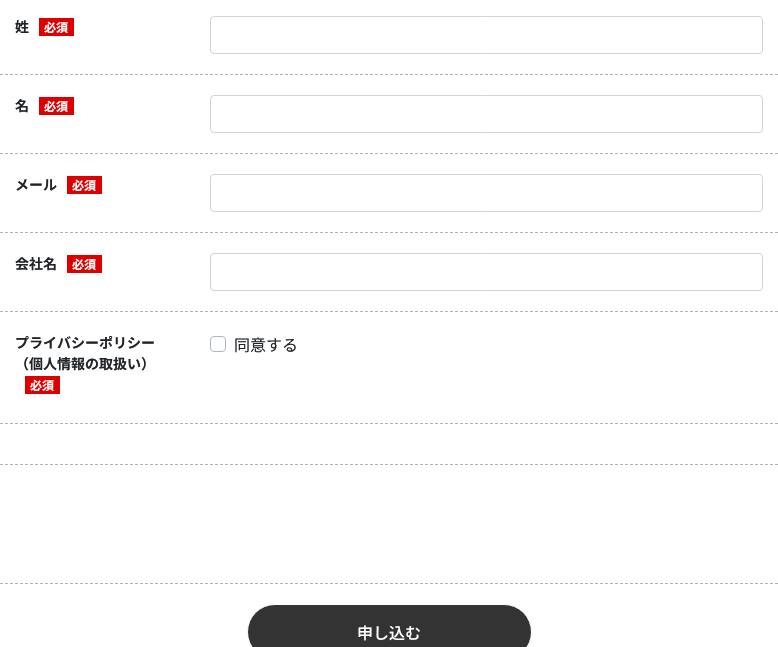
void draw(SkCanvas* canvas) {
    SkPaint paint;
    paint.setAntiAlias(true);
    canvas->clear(0xFFFFFFFF);
    paint.setStyle(SkPaint::kStroke_Style);
    paint.setStrokeWidth(1);
    paint.setColor(0xFFB2B2B2);
    paint.setPathEffect(SkDashPathEffect::Make({{3, 2}}, 0));
    canvas->drawPath(SkPathBuilder().moveTo(0, 74.5f).lineTo(778, 74.5f).detach(), paint);
    paint.setPathEffect(nullptr);
    SkFont font1(fontMgr->matchFamilyStyle("Noto Sans JP", SkFontStyle::Bold()), 14);
    font1.setSubpixel(true);
    paint.setStyle(SkPaint::kFill_Style);
    paint.setColor(0xFF212529);
    canvas->drawString("姓", 15, 32, font1, paint);
    paint.setColor(0xFFDD0000);
    canvas->drawRect(SkRect::MakeXYWH(39, 18, 35, 18), paint);
    SkFont font2(fontMgr->matchFamilyStyle("Noto Sans JP", SkFontStyle::Bold()), 12);
    font2.setSubpixel(true);
    paint.setColor(0xFFFFFFFF);
    canvas->drawString("必須", 44, 32, font2, paint);
    paint.setStyle(SkPaint::kStroke_Style);
    paint.setColor(0xFFCED4DA);
    canvas->drawRoundRect(SkRect::MakeXYWH(210.5f, 16.5f, 552, 37), 3.5f, 3.5f, paint);
    paint.setColor(0xFFB2B2B2);
    paint.setPathEffect(SkDashPathEffect::Make({{3, 2}}, 0));
    canvas->drawPath(SkPathBuilder().moveTo(0, 153.5f).lineTo(778, 153.5f).detach(), paint);
    paint.setPathEffect(nullptr);
    paint.setStyle(SkPaint::kFill_Style);
    paint.setColor(0xFF212529);
    canvas->drawString("名", 15, 111, font1, paint);
    paint.setColor(0xFFDD0000);
    canvas->drawRect(SkRect::MakeXYWH(39, 97, 35, 18), paint);
    paint.setColor(0xFFFFFFFF);
    canvas->drawString("必須", 44, 111, font2, paint);
    paint.setStyle(SkPaint::kStroke_Style);
    paint.setColor(0xFFCED4DA);
    canvas->drawRoundRect(SkRect::MakeXYWH(210.5f, 95.5f, 552, 37), 3.5f, 3.5f, paint);
    paint.setColor(0xFFB2B2B2);
    paint.setPathEffect(SkDashPathEffect::Make({{3, 2}}, 0));
    canvas->drawPath(SkPathBuilder().moveTo(0, 232.5f).lineTo(778, 232.5f).detach(), paint);
    paint.setPathEffect(nullptr);
    paint.setStyle(SkPaint::kFill_Style);
    paint.setColor(0xFF212529);
    canvas->drawString("メール", 15, 190, font1, paint);
    paint.setColor(0xFFDD0000);
    canvas->drawRect(SkRect::MakeXYWH(67, 176, 35, 18), paint);
    paint.setColor(0xFFFFFFFF);
    canvas->drawString("必須", 72, 190, font2, paint);
    paint.setStyle(SkPaint::kStroke_Style);
    paint.setColor(0xFFCED4DA);
    canvas->drawRoundRect(SkRect::MakeXYWH(210.5f, 174.5f, 552, 37), 3.5f, 3.5f, paint);
    paint.setColor(0xFFB2B2B2);
    paint.setPathEffect(SkDashPathEffect::Make({{3, 2}}, 0));
    canvas->drawPath(SkPathBuilder().moveTo(0, 311.5f).lineTo(778, 311.5f).detach(), paint);
    paint.setPathEffect(nullptr);
    paint.setStyle(SkPaint::kFill_Style);
    paint.setColor(0xFF212529);
    canvas->drawString("会社名", 15, 269, font1, paint);
    paint.setColor(0xFFDD0000);
    canvas->drawRect(SkRect::MakeXYWH(67, 255, 35, 18), paint);
    paint.setColor(0xFFFFFFFF);
    canvas->drawString("必須", 72, 269, font2, paint);
    paint.setStyle(SkPaint::kStroke_Style);
    paint.setColor(0xFFCED4DA);
    canvas->drawRoundRect(SkRect::MakeXYWH(210.5f, 253.5f, 552, 37), 3.5f, 3.5f, paint);
    paint.setColor(0xFFB2B2B2);
    paint.setPathEffect(SkDashPathEffect::Make({{3, 2}}, 0));
    canvas->drawPath(SkPathBuilder().moveTo(0, 423.5f).lineTo(778, 423.5f).detach(), paint);
    paint.setPathEffect(nullptr);
    paint.setStyle(SkPaint::kFill_Style);
    paint.setColor(0xFF212529);
    canvas->drawString("プライバシーポリシー", 15, 348, font1, paint);
    canvas->drawString("（個人情報の取扱い）", 15, 369, font1, paint);
    paint.setColor(0xFFDD0000);
    canvas->drawRect(SkRect::MakeXYWH(25, 376, 35, 18), paint);
    paint.setColor(0xFFFFFFFF);
    canvas->drawString("必須", 30, 390, font2, paint);
    paint.setStyle(SkPaint::kStroke_Style);
    paint.setColor(0xFFADB5BD);
    canvas->drawRoundRect(SkRect::MakeXYWH(210.5f, 336.5f, 15, 15), 3.5f, 3.5f, paint);
    SkFont font3(fontMgr->matchFamilyStyle("Noto Sans JP", SkFontStyle::Normal()), 16);
    font3.setSubpixel(true);
    paint.setStyle(SkPaint::kFill_Style);
    paint.setColor(0xFF212529);
    canvas->drawString("同意する", 234, 351, font3, paint);
    paint.setStyle(SkPaint::kStroke_Style);
    paint.setColor(0xFFB2B2B2);
    paint.setPathEffect(SkDashPathEffect::Make({{3, 2}}, 0));
    canvas->drawPath(SkPathBuilder().moveTo(0, 464.5f).lineTo(778, 464.5f).detach(), paint);
    paint.setPathEffect(nullptr);
    paint.setPathEffect(SkDashPathEffect::Make({{3, 2}}, 0));
    canvas->drawPath(SkPathBuilder().moveTo(0, 583.5f).lineTo(778, 583.5f).detach(), paint);
    paint.setPathEffect(nullptr);
    paint.setStyle(SkPaint::kFill_Style);
    paint.setColor(0xFF333333);
    canvas->drawRoundRect(SkRect::MakeXYWH(247.5f, 604.5f, 284, 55), 27.5f, 27.5f, paint);
    paint.setStyle(SkPaint::kStroke_Style);
    paint.setColor(0xFFFFFFFF);
    canvas->drawRoundRect(SkRect::MakeXYWH(247.5f, 604.5f, 284, 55), 27.5f, 27.5f, paint);
    SkFont font4(fontMgr->matchFamilyStyle("Noto Sans JP", SkFontStyle(500, SkFontStyle::kNormal_Width, SkFontStyle::kUpright_Slant)), 16);
    font4.setSubpixel(true);
    paint.setStyle(SkPaint::kFill_Style);
    canvas->drawString("申し込む", 357, 639, font4, paint);
}
